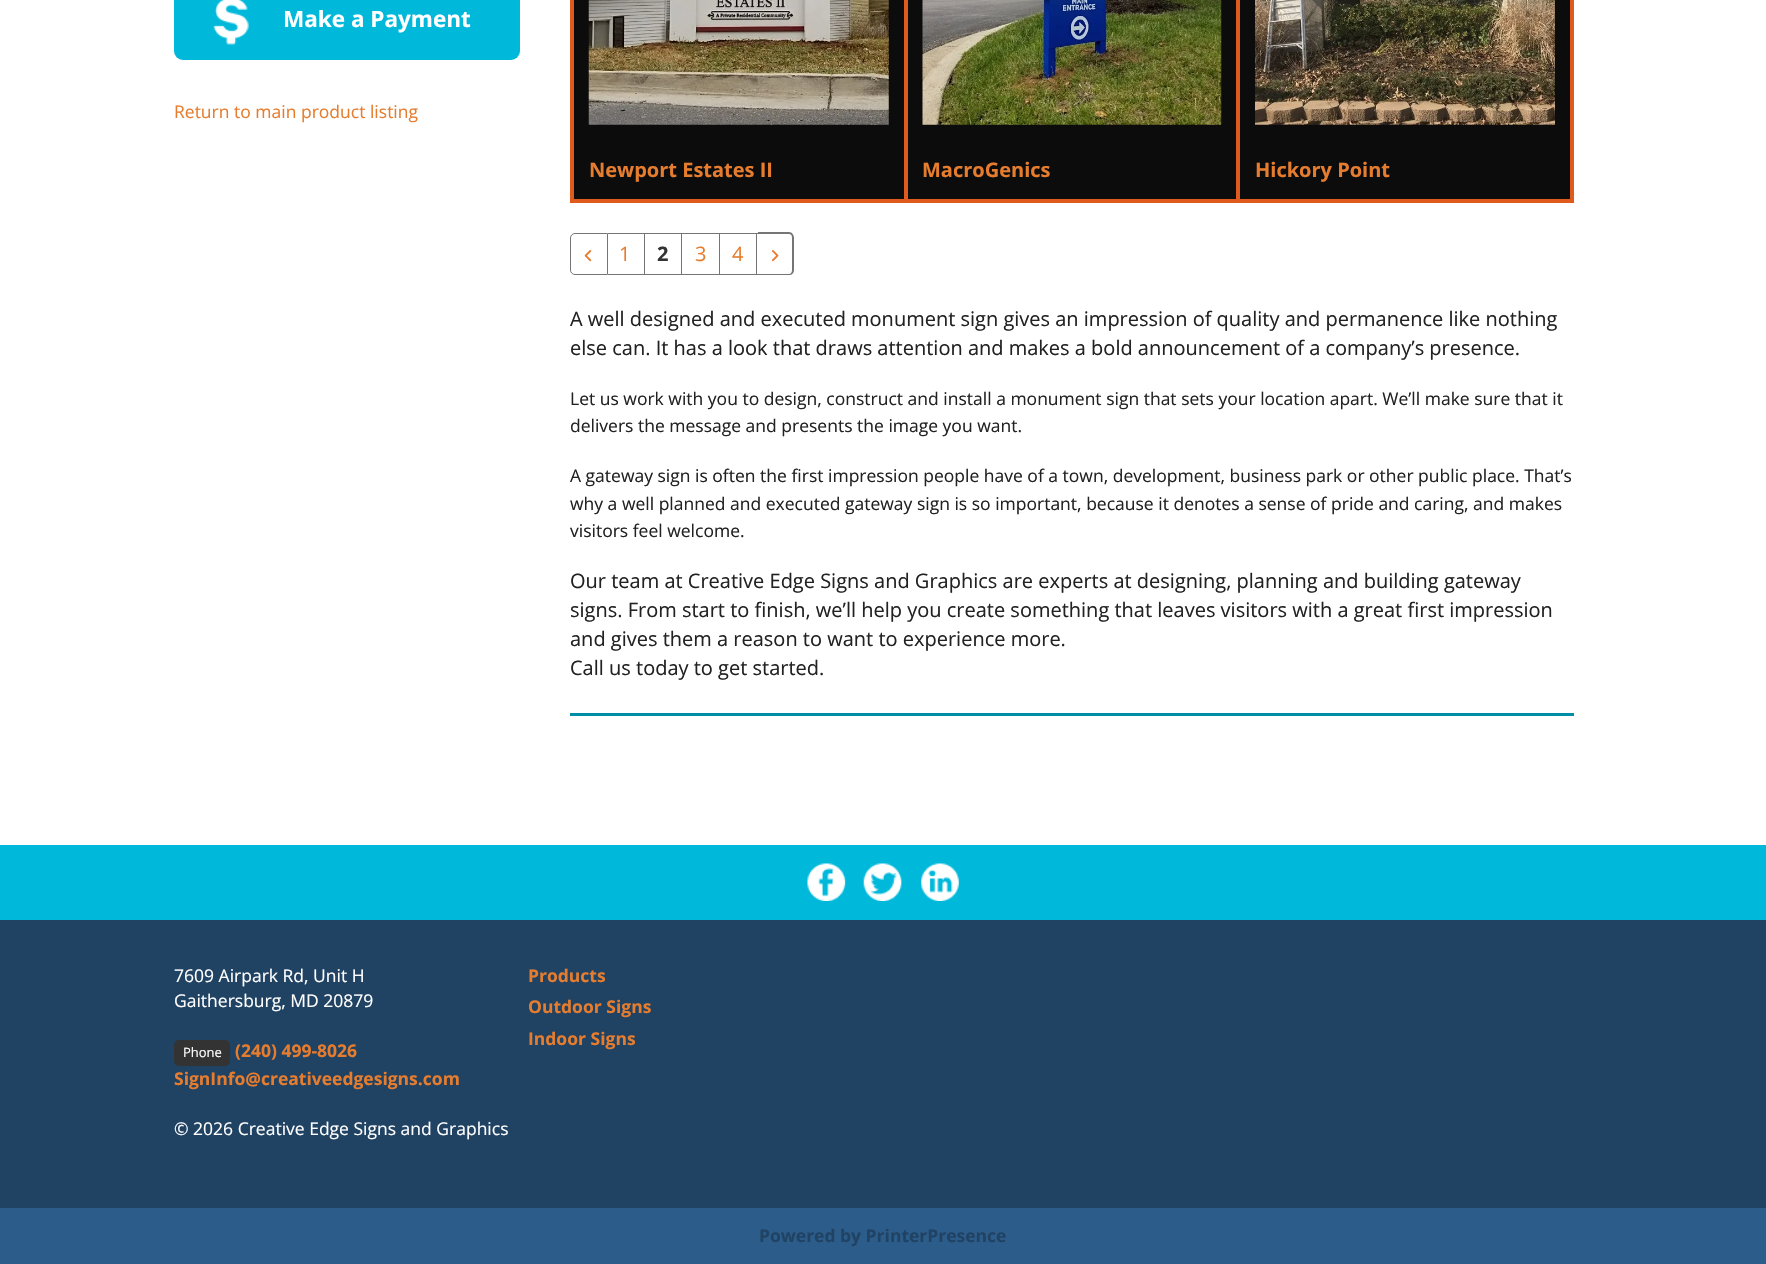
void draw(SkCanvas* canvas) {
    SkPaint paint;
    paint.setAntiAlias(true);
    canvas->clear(0xFF204263);
    paint.setColor(0xFFFFFFFF);
    canvas->drawRect(SkRect::MakeXYWH(0, 0, 1766, 845), paint);
    paint.setColor(0xFF00B8DA);
    canvas->drawRoundRect(SkRect::MakeXYWH(174, -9, 346, 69), 9, 9, paint);
    canvas->drawImageRect(SkImages::DeferredFromEncodedData(SkData::MakeFromFileName("img1.png")), SkRect::MakeXYWH(213, 0, 36, 45), SkSamplingOptions());
    SkFont font1(fontMgr->matchFamilyStyle("Open Sans", SkFontStyle::Bold()), 22.5f);
    font1.setSubpixel(true);
    paint.setColor(0xFFFFFFFF);
    canvas->drawString("Make a Payment", 283, 27, font1, paint);
    SkFont font2(fontMgr->matchFamilyStyle("Open Sans", SkFontStyle::Normal()), 17.5f);
    font2.setSubpixel(true);
    paint.setColor(0xFFE67D2E);
    canvas->drawString("Return to main product listing", 174, 118, font2, paint);
    paint.setColor(0xFFDE5A1D);
    canvas->drawRect(SkRect::MakeXYWH(570, 0, 4, 203), paint);
    paint.setColor(0xFF0D0C0C);
    canvas->drawRect(SkRect::MakeXYWH(574, 0, 330, 199), paint);
    paint.setColor(0xFFDE5A1D);
    canvas->drawRect(SkRect::MakeXYWH(904, 0, 4, 203), paint);
    canvas->drawRect(SkRect::MakeXYWH(574, 199, 334, 4), paint);
    canvas->drawImageRect(SkImages::DeferredFromEncodedData(SkData::MakeFromFileName("img2.png")), SkRect::MakeXYWH(588, 0, 301, 125), SkSamplingOptions());
    SkFont font3(fontMgr->matchFamilyStyle("Open Sans", SkFontStyle::Bold()), 20);
    font3.setSubpixel(true);
    paint.setColor(0xFFE67D2E);
    canvas->drawString("Newport Estates II", 589, 177, font3, paint);
    paint.setColor(0xFF0D0C0C);
    canvas->drawRect(SkRect::MakeXYWH(908, 0, 328, 199), paint);
    paint.setColor(0xFFDE5A1D);
    canvas->drawRect(SkRect::MakeXYWH(1236, 0, 4, 203), paint);
    canvas->drawRect(SkRect::MakeXYWH(908, 199, 332, 4), paint);
    canvas->drawImageRect(SkImages::DeferredFromEncodedData(SkData::MakeFromFileName("img3.png")), SkRect::MakeXYWH(922, 0, 300, 125), SkSamplingOptions());
    paint.setColor(0xFFE67D2E);
    canvas->drawString("MacroGenics", 922, 177, font3, paint);
    paint.setColor(0xFF0D0C0C);
    canvas->drawRect(SkRect::MakeXYWH(1240, 0, 330, 199), paint);
    paint.setColor(0xFFDE5A1D);
    canvas->drawRect(SkRect::MakeXYWH(1570, 0, 4, 203), paint);
    canvas->drawRect(SkRect::MakeXYWH(1240, 199, 334, 4), paint);
    canvas->drawImageRect(SkImages::DeferredFromEncodedData(SkData::MakeFromFileName("img4.png")), SkRect::MakeXYWH(1255, 0, 300, 125), SkSamplingOptions());
    paint.setColor(0xFFE67D2E);
    canvas->drawString("Hickory Point", 1255, 177, font3, paint);
    paint.setStyle(SkPaint::kStroke_Style);
    paint.setStrokeWidth(1);
    paint.setColor(0xFF757575);
    canvas->drawPath(SkPathBuilder().moveTo(575, 233.5f).lineTo(607.5f, 233.5f).lineTo(607.5f, 274.5f).lineTo(575, 274.5f).cubicTo(572.5f, 274.5f, 570.5f, 272.5f, 570.5f, 270).lineTo(570.5f, 238).cubicTo(570.5f, 235.5f, 572.5f, 233.5f, 575, 233.5f).close().detach(), paint);
    canvas->drawImageRect(SkImages::DeferredFromEncodedData(SkData::MakeFromFileName("img5.png")), SkRect::MakeXYWH(584, 250, 8, 12), SkSamplingOptions());
    paint.setStyle(SkPaint::kFill_Style);
    canvas->drawRect(SkRect::MakeXYWH(608, 233, 150, 1), paint);
    canvas->drawRect(SkRect::MakeXYWH(644, 233, 1, 42), paint);
    canvas->drawRect(SkRect::MakeXYWH(608, 274, 37, 1), paint);
    SkFont font4(fontMgr->matchFamilyStyle("Open Sans", SkFontStyle::Normal()), 20);
    font4.setSubpixel(true);
    paint.setColor(0xFFE67D2E);
    canvas->drawString("1", 619, 261, font4, paint);
    paint.setColor(0xFF757575);
    canvas->drawRect(SkRect::MakeXYWH(681, 233, 1, 42), paint);
    canvas->drawRect(SkRect::MakeXYWH(645, 274, 38, 1), paint);
    paint.setColor(0xFF333333);
    canvas->drawString("2", 657, 261, font3, paint);
    paint.setColor(0xFF757575);
    canvas->drawRect(SkRect::MakeXYWH(719, 233, 1, 42), paint);
    canvas->drawRect(SkRect::MakeXYWH(683, 274, 37, 1), paint);
    paint.setColor(0xFFE67D2E);
    canvas->drawString("3", 695, 261, font4, paint);
    paint.setColor(0xFF757575);
    canvas->drawRect(SkRect::MakeXYWH(756, 233, 1, 42), paint);
    canvas->drawRect(SkRect::MakeXYWH(720, 274, 38, 1), paint);
    paint.setColor(0xFFE67D2E);
    canvas->drawString("4", 732, 261, font4, paint);
    paint.setColor(0xFF757575);
    canvas->drawPath(SkPathBuilder(SkPathFillType::kEvenOdd).moveTo(758, 232).lineTo(789, 232).cubicTo(792, 232, 794, 235, 794, 238).lineTo(794, 270).cubicTo(794, 273, 792, 275, 789, 275).lineTo(758, 275).close().moveTo(758, 234).lineTo(789, 234).cubicTo(791, 234, 792, 235, 792, 238).lineTo(792, 270).cubicTo(792, 272, 791, 274, 789, 274).lineTo(758, 274).close().detach(), paint);
    canvas->drawImageRect(SkImages::DeferredFromEncodedData(SkData::MakeFromFileName("img6.png")), SkRect::MakeXYWH(771, 250, 8, 12), SkSamplingOptions());
    paint.setColor(0xFF222222);
    canvas->drawString("A well designed and executed monument sign gives an impression of quality and permanence like nothing", 570, 326, font4, paint);
    canvas->drawString("else can. It has a look that draws attention and makes a bold announcement of a company’s presence.", 570, 355, font4, paint);
    canvas->drawString("Let us work with you to design, construct and install a monument sign that sets your location apart. We’ll make sure that it", 570, 405, font2, paint);
    canvas->drawString("delivers the message and presents the image you want.", 570, 432, font2, paint);
    canvas->drawString("A gateway sign is often the first impression people have of a town, development, business park or other public place. That’s", 570, 482, font2, paint);
    canvas->drawString("why a well planned and executed gateway sign is so important, because it denotes a sense of pride and caring, and makes", 570, 510, font2, paint);
    canvas->drawString("visitors feel welcome.", 570, 537, font2, paint);
    canvas->drawString("Our team at Creative Edge Signs and Graphics are experts at designing, planning and building gateway", 570, 588, font4, paint);
    canvas->drawString("signs. From start to finish, we’ll help you create something that leaves visitors with a great first impression", 570, 617, font4, paint);
    canvas->drawString("and gives them a reason to want to experience more.", 570, 646, font4, paint);
    canvas->drawString("Call us today to get started.", 570, 675, font4, paint);
    paint.setColor(0xFF008DA7);
    canvas->drawRect(SkRect::MakeXYWH(570, 713, 1004, 3), paint);
    paint.setColor(0xFF00B8DA);
    canvas->drawRect(SkRect::MakeXYWH(0, 845, 1766, 75), paint);
    canvas->drawImageRect(SkImages::DeferredFromEncodedData(SkData::MakeFromFileName("img7.png")), SkRect::MakeXYWH(807, 863, 39, 38), SkSamplingOptions());
    canvas->drawImageRect(SkImages::DeferredFromEncodedData(SkData::MakeFromFileName("img8.png")), SkRect::MakeXYWH(863, 863, 39, 38), SkSamplingOptions());
    canvas->drawImageRect(SkImages::DeferredFromEncodedData(SkData::MakeFromFileName("img9.png")), SkRect::MakeXYWH(921, 863, 38, 38), SkSamplingOptions());
    paint.setColor(0xFFFFFFFF);
    canvas->drawString("7609 Airpark Rd, Unit H", 174, 982, font2, paint);
    canvas->drawString("Gaithersburg, MD 20879", 174, 1007, font2, paint);
    paint.setColor(0xFF333333);
    canvas->drawRoundRect(SkRect::MakeXYWH(174, 1040, 56, 26), 5, 5, paint);
    SkFont font5(fontMgr->matchFamilyStyle("Open Sans", SkFontStyle::Normal()), 13);
    font5.setSubpixel(true);
    paint.setColor(0xFFFFFFFF);
    canvas->drawString("Phone", 183, 1057, font5, paint);
    SkFont font6(fontMgr->matchFamilyStyle("Open Sans", SkFontStyle::Bold()), 17.5f);
    font6.setSubpixel(true);
    paint.setColor(0xFFE67D2E);
    canvas->drawString("(240) 499-8026", 235, 1057, font6, paint);
    canvas->drawString("SignInfo@creativeedgesigns.com", 174, 1085, font6, paint);
    paint.setColor(0xFFFFFFFF);
    canvas->drawString("© 2026 Creative Edge Signs and Graphics", 174, 1135, font2, paint);
    paint.setColor(0xFFE67D2E);
    canvas->drawString("Products", 528, 982, font6, paint);
    canvas->drawString("Outdoor Signs", 528, 1013, font6, paint);
    canvas->drawString("Indoor Signs", 528, 1045, font6, paint);
    paint.setColor(0xFF2C5C8A);
    canvas->drawRect(SkRect::MakeXYWH(0, 1208, 1766, 56), paint);
    paint.setColor(0xFF204263);
    canvas->drawString("Powered by PrinterPresence", 759, 1242, font6, paint);
}
